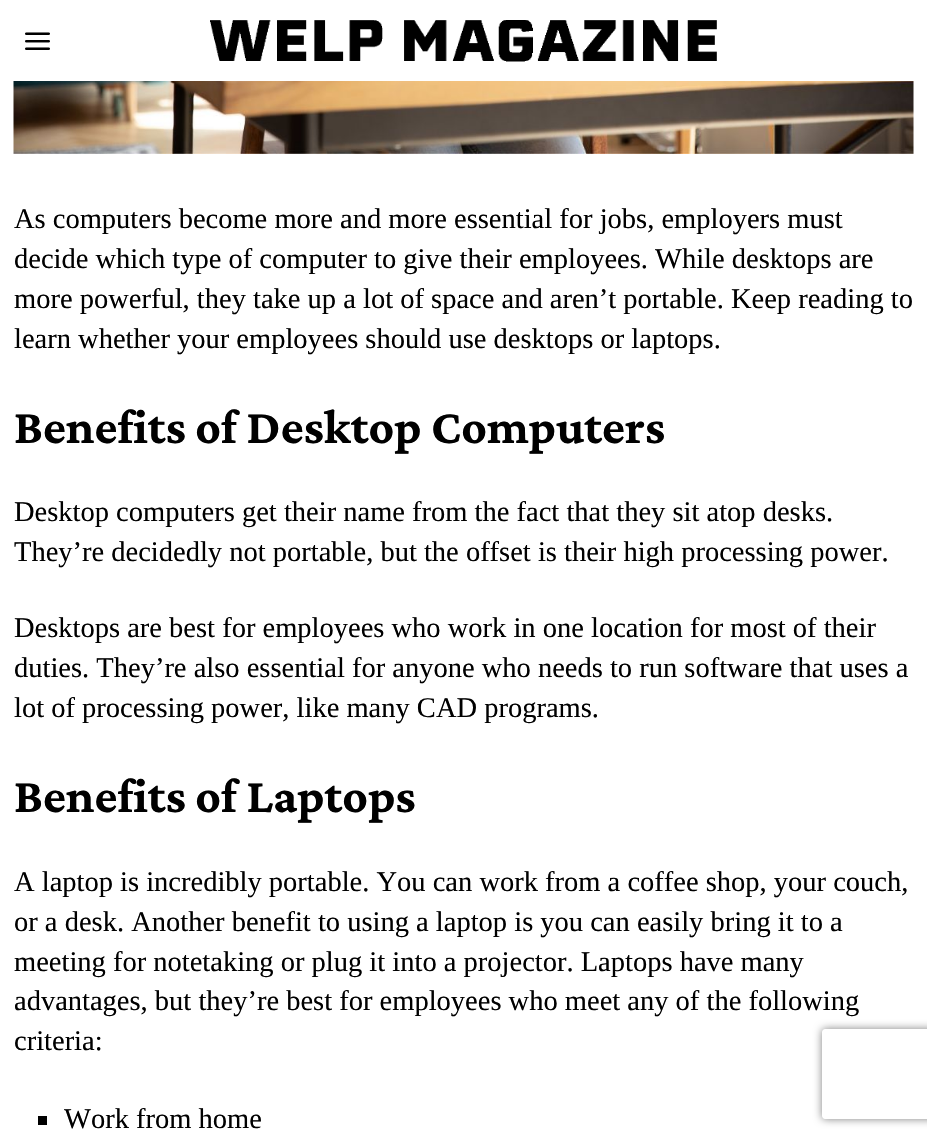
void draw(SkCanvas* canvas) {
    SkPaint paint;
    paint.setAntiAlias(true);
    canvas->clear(0xFFFFFFFF);
    canvas->drawImageRect(SkImages::DeferredFromEncodedData(SkData::MakeFromFileName("img1.png")), SkRect::MakeXYWH(25, 32, 25, 18), SkSamplingOptions());
    canvas->drawImageRect(SkImages::DeferredFromEncodedData(SkData::MakeFromFileName("img2.png")), SkRect::MakeXYWH(210, 20, 507, 42), SkSamplingOptions());
    canvas->drawImageRect(SkImages::DeferredFromEncodedData(SkData::MakeFromFileName("img3.png")), SkRect::MakeXYWH(13, 81, 901, 73), SkSamplingOptions());
    SkFont font1(fontMgr->matchFamilyStyle("Liberation Serif", SkFontStyle::Normal()), 28.5f);
    font1.setSubpixel(true);
    paint.setColor(0xFF000000);
    canvas->drawString("As computers become more and more essential for jobs, employers must", 14, 228, font1, paint);
    canvas->drawString("decide which type of computer to give their employees. While desktops are", 14, 268, font1, paint);
    canvas->drawString("more powerful, they take up a lot of space and aren’t portable. Keep reading to", 14, 308, font1, paint);
    canvas->drawString("learn whether your employees should use desktops or laptops.", 14, 348, font1, paint);
    SkFont font2(fontMgr->matchFamilyStyle("Crimson Pro", SkFontStyle::Bold()), 49.5f);
    font2.setSubpixel(true);
    canvas->drawString("Benefits of Desktop Computers", 14, 443, font2, paint);
    canvas->drawString("Desktop computers get their name from the fact that they sit atop desks.", 14, 521, font1, paint);
    canvas->drawString("They’re decidedly not portable, but the offset is their high processing power.", 14, 561, font1, paint);
    canvas->drawString("Desktops are best for employees who work in one location for most of their", 14, 637, font1, paint);
    canvas->drawString("duties. They’re also essential for anyone who needs to run software that uses a", 14, 677, font1, paint);
    canvas->drawString("lot of processing power, like many CAD programs.", 14, 717, font1, paint);
    canvas->drawString("Benefits of Laptops", 14, 812, font2, paint);
    canvas->drawString("A laptop is incredibly portable. You can work from a coffee shop, your couch,", 14, 891, font1, paint);
    canvas->drawString("or a desk. Another benefit to using a laptop is you can easily bring it to a", 14, 931, font1, paint);
    canvas->drawString("meeting for notetaking or plug it into a projector. Laptops have many", 14, 971, font1, paint);
    canvas->drawString("advantages, but they’re best for employees who meet any of the following", 14, 1010, font1, paint);
    canvas->drawString("criteria:", 14, 1050, font1, paint);
    canvas->drawRect(SkRect::MakeXYWH(38, 1116, 9, 9), paint);
    canvas->drawString("Work from home", 64, 1128, font1, paint);
    canvas->save();
    canvas->clipPath(SkPathBuilder(SkPathFillType::kEvenOdd).moveTo(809, 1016).lineTo(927, 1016).lineTo(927, 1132).lineTo(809, 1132).close().moveTo(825, 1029).lineTo(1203, 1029).cubicTo(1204.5f, 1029, 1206, 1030.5f, 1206, 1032).lineTo(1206, 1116).cubicTo(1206, 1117.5f, 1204.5f, 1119, 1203, 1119).lineTo(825, 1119).cubicTo(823.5f, 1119, 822, 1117.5f, 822, 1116).lineTo(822, 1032).cubicTo(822, 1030.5f, 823.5f, 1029, 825, 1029).close().detach(), true);
    paint.setColor(0xFF808080);
    paint.setMaskFilter(SkMaskFilter::MakeBlur(kNormal_SkBlurStyle, 4));
    canvas->drawRoundRect(SkRect::MakeXYWH(822, 1029, 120, 90), 3, 3, paint);
    paint.setMaskFilter(nullptr);
    canvas->restore();
}
